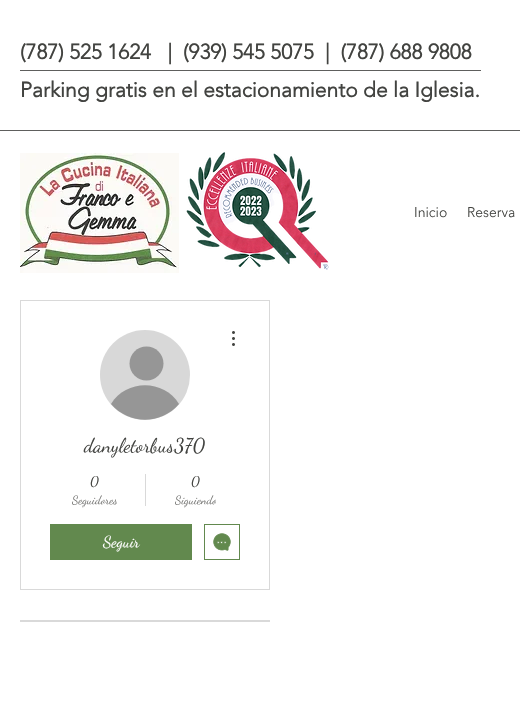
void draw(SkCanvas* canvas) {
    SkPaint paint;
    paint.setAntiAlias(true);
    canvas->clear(0xFFFFFFFF);
    SkFont font1(fontMgr->matchFamilyStyle("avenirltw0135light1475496", SkFontStyle::Bold()), 21);
    font1.setSubpixel(true);
    paint.setColor(0xFF424340);
    canvas->drawString("(787) 525 1624   |  (939) 545 5075  |  (787) 688 9808", 20, 59, font1, paint);
    canvas->drawString("Parking gratis en el estacionamiento de la Iglesia.", 20, 97, font1, paint);
    paint.setColor(0xFF5E5F5D);
    canvas->drawRect(SkRect::MakeXYWH(20, 70, 461, 1), paint);
    canvas->drawRect(SkRect::MakeXYWH(0, 130, 520, 1), paint);
    canvas->drawImageRect(SkImages::DeferredFromEncodedData(SkData::MakeFromFileName("img1.png")), SkRect::MakeXYWH(20, 153, 159, 120), SkSamplingOptions());
    canvas->drawImageRect(SkImages::DeferredFromEncodedData(SkData::MakeFromFileName("img2.png")), SkRect::MakeXYWH(186, 152, 143, 118), SkSamplingOptions());
    SkFont font2(fontMgr->matchFamilyStyle("avenirltw0135light1475496", SkFontStyle(300, SkFontStyle::kNormal_Width, SkFontStyle::kUpright_Slant)), 14);
    font2.setSubpixel(true);
    paint.setColor(0xFF424340);
    canvas->drawString("Inicio", 414, 217, font2, paint);
    canvas->drawString("Reserva", 467, 217, font2, paint);
    paint.setStyle(SkPaint::kStroke_Style);
    paint.setStrokeWidth(1);
    paint.setColor(0xFFD9D9D9);
    canvas->drawRect(SkRect::MakeXYWH(20.5f, 300.5f, 249, 289), paint);
    paint.setStyle(SkPaint::kFill_Style);
    paint.setColor(0xFFD8D8D8);
    canvas->drawCircle(145, 375, 45, paint);
    paint.setColor(0xFF969696);
    canvas->drawCircle(146.5f, 363.5f, 17, paint);
    canvas->drawPath(SkPathBuilder().moveTo(179, 404).cubicTo(161, 425, 129, 425, 111, 404).cubicTo(126, 379, 164, 379, 179, 404).close().detach(), paint);
    canvas->drawImageRect(SkImages::DeferredFromEncodedData(SkData::MakeFromFileName("img3.png")), SkRect::MakeXYWH(232, 331, 3, 15), SkSamplingOptions());
    SkFont font3(fontMgr->matchFamilyStyle("Dancing Script", SkFontStyle::Normal()), 20);
    font3.setSubpixel(true);
    paint.setColor(0xFF424340);
    canvas->drawString("danyletorbus370", 84, 452, font3, paint);
    SkFont font4(fontMgr->matchFamilyStyle("Dancing Script", SkFontStyle::Normal()), 14);
    font4.setSubpixel(true);
    canvas->drawString("0", 90, 486, font4, paint);
    canvas->save();
    canvas->clipRect(SkRect::MakeXYWH(72, 492, 45, 16));
    SkFont font5(fontMgr->matchFamilyStyle("Dancing Script", SkFontStyle::Normal()), 12);
    font5.setSubpixel(true);
    paint.setColor(0xFF7B7B79);
    canvas->drawString("Seguidores", 72, 504, font5, paint);
    canvas->restore();
    paint.setColor(0xFFD9D9D9);
    canvas->drawRect(SkRect::MakeXYWH(145, 474, 1, 32), paint);
    paint.setColor(0xFF424340);
    canvas->drawString("0", 191, 486, font4, paint);
    canvas->save();
    canvas->clipRect(SkRect::MakeXYWH(175, 492, 41, 16));
    paint.setColor(0xFF7B7B79);
    canvas->drawString("Siguiendo", 175, 504, font5, paint);
    canvas->restore();
    paint.setColor(0xFF62894E);
    canvas->drawRect(SkRect::MakeXYWH(50, 524, 142, 36), paint);
    SkFont font6(fontMgr->matchFamilyStyle("Dancing Script", SkFontStyle::Normal()), 16);
    font6.setSubpixel(true);
    paint.setColor(0xFFFFFFFF);
    canvas->drawString("Seguir", 103, 547, font6, paint);
    paint.setStyle(SkPaint::kStroke_Style);
    paint.setColor(0xFF62894E);
    canvas->drawRect(SkRect::MakeXYWH(204.5f, 524.5f, 35, 35), paint);
    canvas->drawImageRect(SkImages::DeferredFromEncodedData(SkData::MakeFromFileName("img4.png")), SkRect::MakeXYWH(213, 533, 18, 18), SkSamplingOptions());
    paint.setStyle(SkPaint::kFill_Style);
    paint.setColor(0xFFD9D9D9);
    canvas->drawRect(SkRect::MakeXYWH(20, 620, 250, 2), paint);
}
